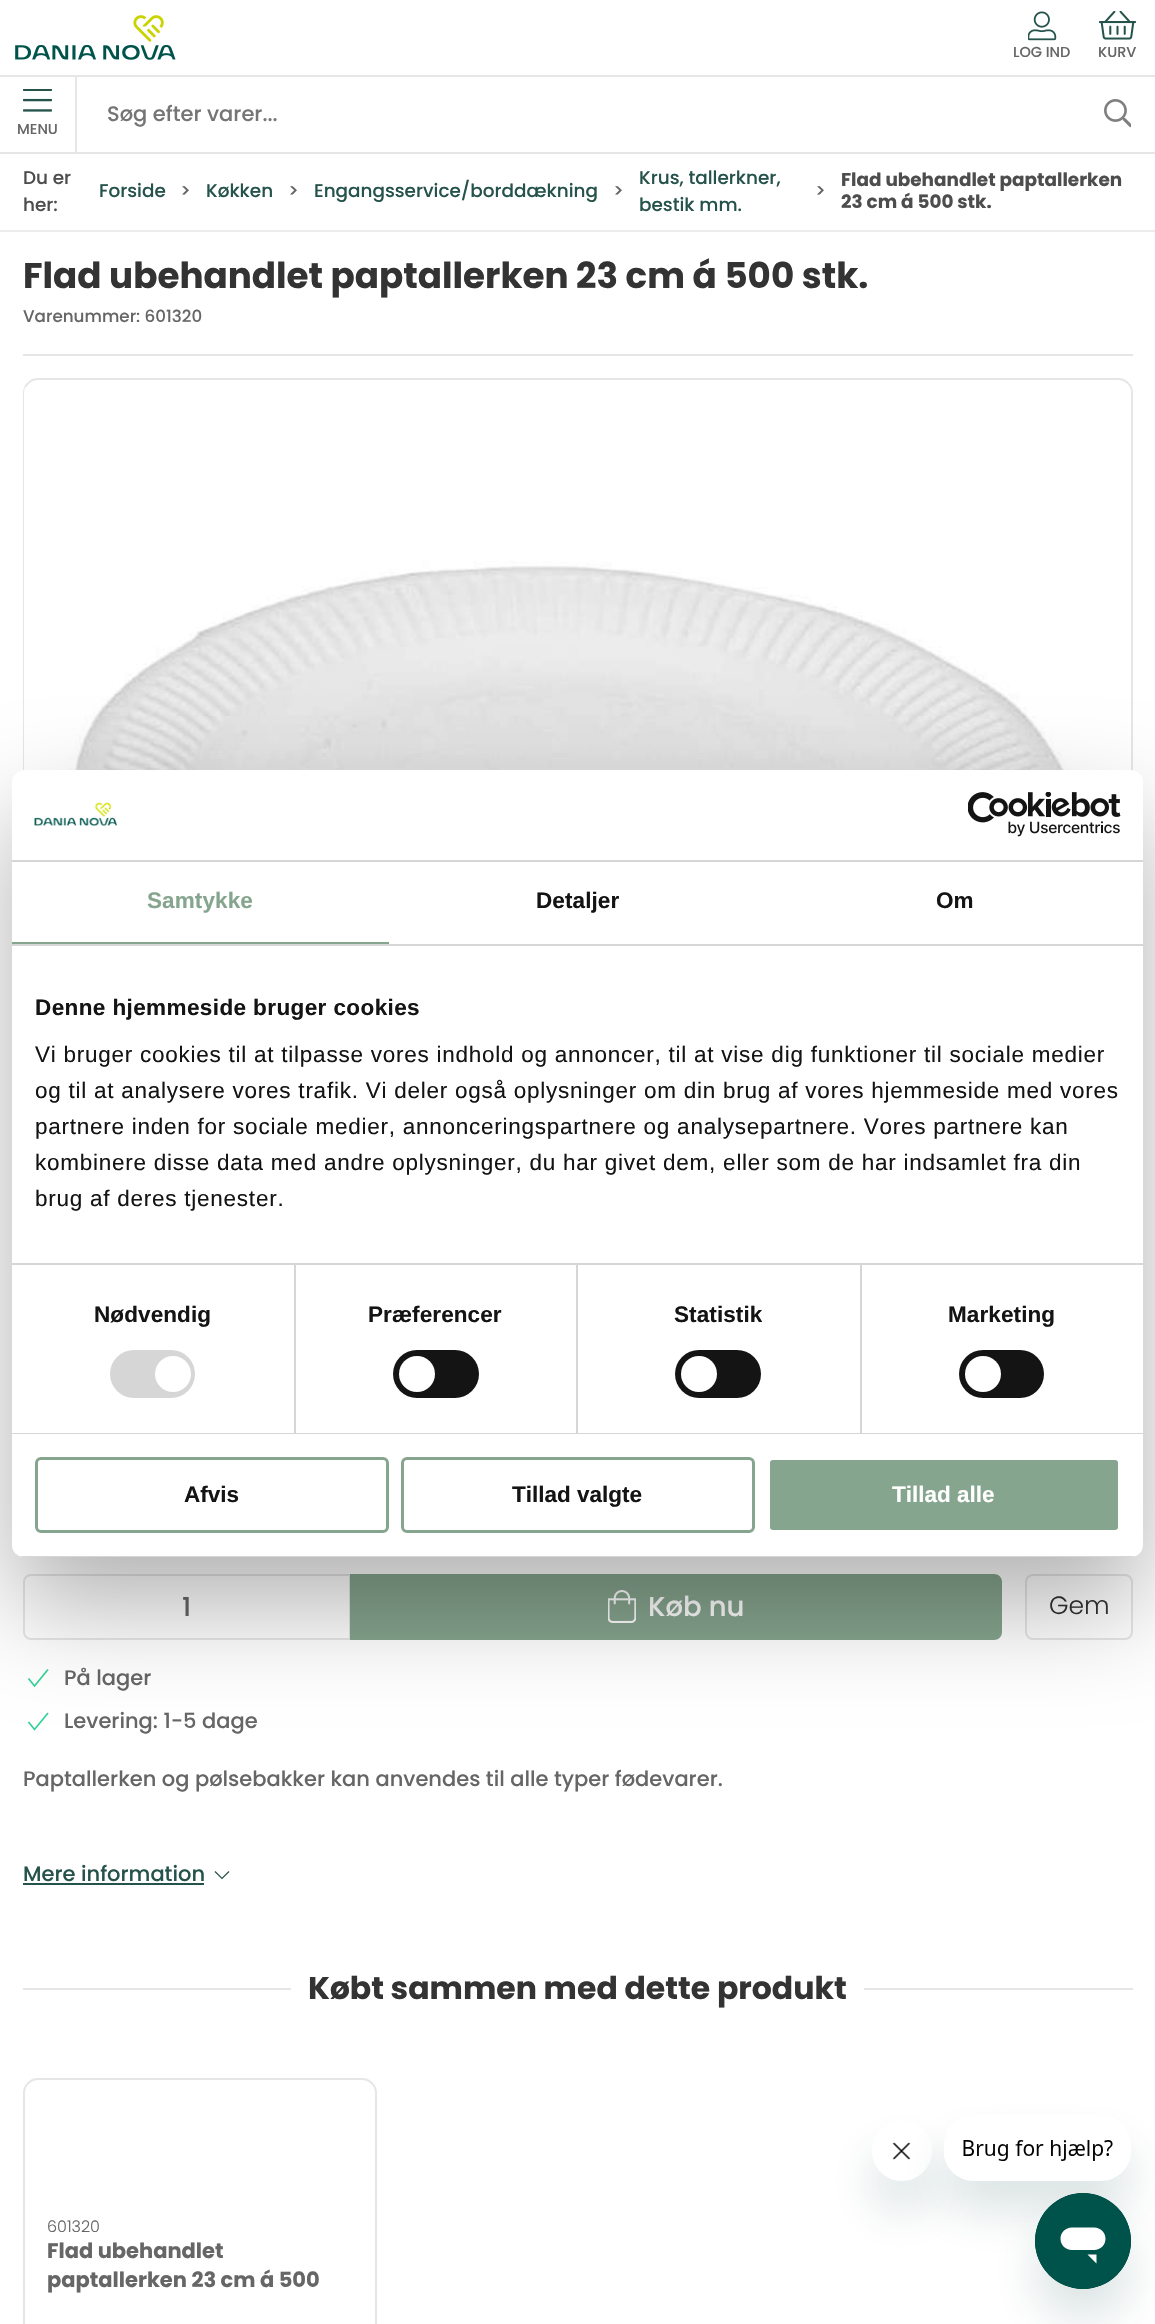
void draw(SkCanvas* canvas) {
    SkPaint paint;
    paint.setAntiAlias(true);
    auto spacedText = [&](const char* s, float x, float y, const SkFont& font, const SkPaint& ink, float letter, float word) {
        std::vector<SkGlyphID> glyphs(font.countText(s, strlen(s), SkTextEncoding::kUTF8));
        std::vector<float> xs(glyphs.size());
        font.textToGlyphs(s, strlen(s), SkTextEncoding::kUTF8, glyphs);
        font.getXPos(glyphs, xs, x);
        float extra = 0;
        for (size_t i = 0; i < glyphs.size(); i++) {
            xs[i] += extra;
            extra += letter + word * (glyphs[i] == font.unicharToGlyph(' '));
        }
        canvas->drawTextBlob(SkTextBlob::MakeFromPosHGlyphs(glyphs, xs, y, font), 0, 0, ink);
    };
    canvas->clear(0xFFFFFFFF);
    paint.setColor(0xFFE6E6E6);
    canvas->drawRect(SkRect::MakeXYWH(0, 75, 1155, 2), paint);
    canvas->drawImageRect(SkImages::DeferredFromEncodedData(SkData::MakeFromFileName("img1.png")), SkRect::MakeXYWH(15, 15, 161, 45), SkSamplingOptions());
    canvas->drawImageRect(SkImages::DeferredFromEncodedData(SkData::MakeFromFileName("img2.png")), SkRect::MakeXYWH(1028, 11, 29, 30), SkSamplingOptions());
    SkFont font1(fontMgr->matchFamilyStyle("Poppins", SkFontStyle(500, SkFontStyle::kNormal_Width, SkFontStyle::kUpright_Slant)), 14.5f);
    font1.setSubpixel(true);
    paint.setColor(0xFF666666);
    canvas->drawString("LOG IND", 1013, 57, font1, paint);
    canvas->drawImageRect(SkImages::DeferredFromEncodedData(SkData::MakeFromFileName("img3.png")), SkRect::MakeXYWH(1098, 11, 39, 29), SkSamplingOptions());
    canvas->drawString("KURV", 1098, 57, font1, paint);
    paint.setColor(0xFFE6E6E6);
    canvas->drawRect(SkRect::MakeXYWH(0, 152, 1155, 2), paint);
    SkFont font2(fontMgr->matchFamilyStyle("Poppins", SkFontStyle(500, SkFontStyle::kNormal_Width, SkFontStyle::kUpright_Slant)), 21);
    font2.setSubpixel(true);
    paint.setColor(0xFF757575);
    canvas->drawString("Søg efter varer...", 107, 121, font2, paint);
    canvas->drawImageRect(SkImages::DeferredFromEncodedData(SkData::MakeFromFileName("img4.png")), SkRect::MakeXYWH(1104, 99, 27, 29), SkSamplingOptions());
    paint.setColor(0xFFE6E6E6);
    canvas->drawRect(SkRect::MakeXYWH(75, 77, 2, 75), paint);
    canvas->drawImageRect(SkImages::DeferredFromEncodedData(SkData::MakeFromFileName("img5.png")), SkRect::MakeXYWH(23, 89, 29, 23), SkSamplingOptions());
    paint.setColor(0xFF666666);
    canvas->drawString("MENU", 17, 134, font1, paint);
    paint.setColor(0xFFECECEC);
    canvas->drawRect(SkRect::MakeXYWH(0, 230, 1155, 2), paint);
    SkFont font3(fontMgr->matchFamilyStyle("Poppins", SkFontStyle(500, SkFontStyle::kNormal_Width, SkFontStyle::kUpright_Slant)), 18.4f);
    font3.setSubpixel(true);
    paint.setColor(0xFF4D4D4D);
    canvas->drawString("Du er", 23, 184, font3, paint);
    canvas->drawString("her:", 23, 211, font3, paint);
    paint.setColor(0xFF25534B);
    canvas->drawString("Forside", 99, 197, font3, paint);
    paint.setColor(0xFF666666);
    canvas->drawString(">", 180, 197, font3, paint);
    paint.setColor(0xFF25534B);
    canvas->drawString("Køkken", 206, 197, font3, paint);
    paint.setColor(0xFF666666);
    canvas->drawString(">", 288, 197, font3, paint);
    paint.setColor(0xFF25534B);
    canvas->drawString("Engangsservice/borddækning", 314, 197, font3, paint);
    paint.setColor(0xFF666666);
    canvas->drawString(">", 613, 197, font3, paint);
    paint.setColor(0xFF25534B);
    canvas->drawString("Krus, tallerkner,", 639, 184, font3, paint);
    canvas->drawString("bestik mm.", 639, 211, font3, paint);
    paint.setColor(0xFF666666);
    canvas->drawString(">", 815, 197, font3, paint);
    SkFont font4(fontMgr->matchFamilyStyle("Poppins", SkFontStyle::Bold()), 18.4f);
    font4.setSubpixel(true);
    paint.setColor(0xFF4D4D4D);
    canvas->drawString("Flad ubehandlet paptallerken", 841, 186, font4, paint);
    canvas->drawString("23 cm á 500 stk.", 841, 208, font4, paint);
    SkFont font5(fontMgr->matchFamilyStyle("Poppins", SkFontStyle::Bold()), 35.7f);
    font5.setSubpixel(true);
    paint.setColor(0xFF333333);
    canvas->drawString("Flad ubehandlet paptallerken 23 cm á 500 stk.", 23, 288, font5, paint);
    SkFont font6(fontMgr->matchFamilyStyle("Poppins", SkFontStyle(500, SkFontStyle::kNormal_Width, SkFontStyle::kUpright_Slant)), 16.75f);
    font6.setSubpixel(true);
    paint.setColor(0xFF666666);
    canvas->drawString("Varenummer: 601320", 23, 322, font6, paint);
    paint.setColor(0xFFE6E6E6);
    canvas->drawRect(SkRect::MakeXYWH(23, 354, 1110, 2), paint);
    paint.setStyle(SkPaint::kStroke_Style);
    paint.setStrokeWidth(2);
    canvas->drawRoundRect(SkRect::MakeXYWH(24, 379, 1108, 847), 14, 14, paint);
    canvas->drawImageRect(SkImages::DeferredFromEncodedData(SkData::MakeFromFileName("img6.png")), SkRect::MakeXYWH(24, 387, 1107, 383), SkSamplingOptions());
    canvas->drawPath(SkPathBuilder().moveTo(31, 1575).lineTo(350, 1575).lineTo(350, 1639).lineTo(31, 1639).cubicTo(27, 1639, 24, 1636, 24, 1632).lineTo(24, 1582).cubicTo(24, 1578, 27, 1575, 31, 1575).close().detach(), paint);
    SkFont font7(fontMgr->matchFamilyStyle("Poppins", SkFontStyle(500, SkFontStyle::kNormal_Width, SkFontStyle::kUpright_Slant)), 26);
    font7.setSubpixel(true);
    paint.setStyle(SkPaint::kFill_Style);
    paint.setColor(0xFF666666);
    canvas->drawString("1", 182, 1616, font7, paint);
    paint.setColor(0xFF86A58E);
    canvas->drawPath(SkPathBuilder().moveTo(350, 1574).lineTo(994, 1574).cubicTo(998.5f, 1574, 1002, 1577.5f, 1002, 1582).lineTo(1002, 1632).cubicTo(1002, 1636.5f, 998.5f, 1640, 994, 1640).lineTo(350, 1640).close().detach(), paint);
    canvas->drawImageRect(SkImages::DeferredFromEncodedData(SkData::MakeFromFileName("img7.png")), SkRect::MakeXYWH(608, 1590, 28, 33), SkSamplingOptions());
    SkFont font8(fontMgr->matchFamilyStyle("Poppins", SkFontStyle(500, SkFontStyle::kNormal_Width, SkFontStyle::kUpright_Slant)), 27.5f);
    font8.setSubpixel(true);
    paint.setColor(0xFFFFFFFF);
    canvas->drawString("Køb nu", 648, 1616, font8, paint);
    paint.setStyle(SkPaint::kStroke_Style);
    paint.setColor(0xFFE6E6E6);
    canvas->drawRoundRect(SkRect::MakeXYWH(1026, 1575, 106, 64), 7, 7, paint);
    SkFont font9(fontMgr->matchFamilyStyle("Poppins", SkFontStyle(300, SkFontStyle::kNormal_Width, SkFontStyle::kUpright_Slant)), 25);
    font9.setSubpixel(true);
    paint.setStyle(SkPaint::kFill_Style);
    paint.setColor(0xFF333333);
    canvas->drawString("Gem", 1049, 1614, font9, paint);
    paint.setStyle(SkPaint::kStroke_Style);
    paint.setStrokeWidth(1.7f);
    paint.setColor(0xFF32D296);
    canvas->drawPath(SkPathBuilder().moveTo(28.5f, 1678.5f).lineTo(34.5f, 1686).lineTo(48, 1669.5f).moveTo(28.5f, 1722).lineTo(34.5f, 1729.5f).lineTo(48, 1713).detach(), paint);
    paint.setStyle(SkPaint::kFill_Style);
    paint.setColor(0xFF666666);
    canvas->drawString("På lager", 64, 1685, font2, paint);
    canvas->drawString("Levering: 1-5 dage", 64, 1728, font2, paint);
    canvas->drawString("Paptallerken og pølsebakker kan anvendes til alle typer fødevarer.", 23, 1786, font2, paint);
    paint.setColor(0xFF25534B);
    canvas->drawString("Mere information", 23, 1881, font2, paint);
    canvas->drawRect(SkRect::MakeXYWH(23, 1883, 181, 2), paint);
    paint.setStyle(SkPaint::kStroke_Style);
    paint.setStrokeWidth(1.2f);
    canvas->drawPath(SkPathBuilder().moveTo(229, 1871.5f).lineTo(222, 1878.5f).lineTo(215, 1871.5f).detach(), paint);
    paint.setStyle(SkPaint::kFill_Style);
    paint.setColor(0xFFE6E6E6);
    canvas->drawRect(SkRect::MakeXYWH(23, 1988, 268, 2), paint);
    SkFont font10(fontMgr->matchFamilyStyle("Poppins", SkFontStyle::Bold()), 31.5f);
    font10.setSubpixel(true);
    paint.setColor(0xFF333333);
    canvas->drawString("Købt sammen med dette produkt", 308, 1999, font10, paint);
    paint.setColor(0xFFE6E6E6);
    canvas->drawRect(SkRect::MakeXYWH(864, 1988, 269, 2), paint);
    paint.setStyle(SkPaint::kStroke_Style);
    paint.setStrokeWidth(2);
    canvas->drawRoundRect(SkRect::MakeXYWH(24, 2079, 352, 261), 14, 14, paint);
    SkFont font11(fontMgr->matchFamilyStyle("Poppins", SkFontStyle(300, SkFontStyle::kNormal_Width, SkFontStyle::kUpright_Slant)), 16);
    font11.setSubpixel(true);
    paint.setStyle(SkPaint::kFill_Style);
    paint.setColor(0xFF666666);
    canvas->drawString("601320", 47, 2232, font11, paint);
    SkFont font12(fontMgr->matchFamilyStyle("Poppins", SkFontStyle::Bold()), 21);
    font12.setSubpixel(true);
    canvas->drawString("Flad ubehandlet", 47, 2258, font12, paint);
    canvas->drawString("paptallerken 23 cm á 500", 47, 2287, font12, paint);
    paint.setColor(0x4D000000);
    paint.setMaskFilter(SkMaskFilter::MakeBlur(kNormal_SkBlurStyle, 51));
    canvas->drawRoundRect(SkRect::MakeXYWH(12, 818, 1131, 787), 12, 12, paint);
    paint.setMaskFilter(nullptr);
    paint.setColor(0xFFFFFFFF);
    canvas->drawRoundRect(SkRect::MakeXYWH(12, 770, 1131, 787), 12, 12, paint);
    paint.setColor(0xFFD6D6D6);
    canvas->drawRect(SkRect::MakeXYWH(12, 860, 1131, 2), paint);
    canvas->drawImageRect(SkImages::DeferredFromEncodedData(SkData::MakeFromFileName("img8.png")), SkRect::MakeXYWH(34, 802, 83, 24), SkSamplingOptions());
    canvas->drawImageRect(SkImages::DeferredFromEncodedData(SkData::MakeFromFileName("img9.png")), SkRect::MakeXYWH(968, 792, 153, 45), SkSamplingOptions());
    canvas->drawRect(SkRect::MakeXYWH(12, 944, 1131, 2), paint);
    paint.setColor(0xFF86A58E);
    canvas->drawRect(SkRect::MakeXYWH(12, 942, 377, 2), paint);
    SkFont font13(fontMgr->matchFamilyStyle("Liberation Sans", SkFontStyle::Bold()), 22.5f);
    font13.setSubpixel(true);
    spacedText("Samtykke", 147, 908, font13, paint, 0.1f, 0);
    paint.setColor(0xFF141414);
    spacedText("Detaljer", 536, 908, font13, paint, 0.1f, 0);
    spacedText("Om", 936, 908, font13, paint, 0.1f, 0);
    paint.setColor(0xFFD6D6D6);
    canvas->drawRect(SkRect::MakeXYWH(12, 1263, 1131, 2), paint);
    paint.setColor(0xFF141414);
    spacedText("Denne hjemmeside bruger cookies", 35, 1015, font13, paint, 0.4f, 0);
    SkFont font14(fontMgr->matchFamilyStyle("Liberation Sans", SkFontStyle::Normal()), 22.5f);
    font14.setSubpixel(true);
    spacedText("Vi bruger cookies til at tilpasse vores indhold og annoncer, til at vise dig funktioner til sociale medier", 35, 1062, font14, paint, 0.75f, 0);
    spacedText("og til at analysere vores trafik. Vi deler også oplysninger om din brug af vores hjemmeside med vores", 35, 1098, font14, paint, 0.75f, 0);
    spacedText("partnere inden for sociale medier, annonceringspartnere og analysepartnere. Vores partnere kan", 35, 1134, font14, paint, 0.75f, 0);
    spacedText("kombinere disse data med andre oplysninger, du har givet dem, eller som de har indsamlet fra din", 35, 1170, font14, paint, 0.75f, 0);
    spacedText("brug af deres tjenester.", 35, 1206, font14, paint, 0.75f, 0);
    paint.setColor(0xFFD6D6D6);
    canvas->drawRect(SkRect::MakeXYWH(12, 1433, 1131, 1), paint);
    canvas->drawRect(SkRect::MakeXYWH(294, 1265, 2, 168), paint);
    paint.setColor(0xFF141414);
    spacedText("Nødvendig", 94, 1322, font13, paint, 0.1f, 0);
    paint.setColor(0xFFD6D6D6);
    canvas->drawRoundRect(SkRect::MakeXYWH(110, 1350, 85, 48), 24, 24, paint);
    paint.setColor(0xFFFFFFFF);
    canvas->drawCircle(173, 1374, 18, paint);
    paint.setColor(0xFFD6D6D6);
    canvas->drawRect(SkRect::MakeXYWH(576, 1265, 2, 168), paint);
    paint.setColor(0xFF141414);
    spacedText("Præferencer", 368, 1322, font13, paint, 0.1f, 0);
    canvas->drawRoundRect(SkRect::MakeXYWH(393, 1350, 86, 48), 24, 24, paint);
    paint.setColor(0xFFFFFFFF);
    canvas->drawCircle(417, 1374, 18, paint);
    paint.setColor(0xFFD6D6D6);
    canvas->drawRect(SkRect::MakeXYWH(860, 1265, 2, 168), paint);
    paint.setColor(0xFF141414);
    spacedText("Statistik", 674, 1322, font13, paint, 0.1f, 0);
    canvas->drawRoundRect(SkRect::MakeXYWH(675, 1350, 86, 48), 24, 24, paint);
    paint.setColor(0xFFFFFFFF);
    canvas->drawCircle(699, 1374, 18, paint);
    paint.setColor(0xFF141414);
    spacedText("Marketing", 948, 1322, font13, paint, 0.1f, 0);
    canvas->drawRoundRect(SkRect::MakeXYWH(959, 1350, 85, 48), 24, 24, paint);
    paint.setColor(0xFFFFFFFF);
    canvas->drawCircle(983, 1374, 18, paint);
    canvas->save();
    canvas->clipPath(SkPathBuilder().moveTo(24, 770).lineTo(1131, 770).cubicTo(1137.5f, 770, 1143, 775.5f, 1143, 782).lineTo(1143, 1545).cubicTo(1143, 1551.5f, 1137.5f, 1557, 1131, 1557).lineTo(24, 1557).cubicTo(17.5f, 1557, 12, 1551.5f, 12, 1545).lineTo(12, 782).cubicTo(12, 775.5f, 17.5f, 770, 24, 770).close().detach(), true);
    paint.setColor(0xFFD6D6D6);
    canvas->drawRect(SkRect::MakeXYWH(12, 1556, 1131, 1), paint);
    canvas->restore();
    paint.setStyle(SkPaint::kStroke_Style);
    paint.setStrokeWidth(3);
    paint.setColor(0xFF86A58E);
    canvas->drawRoundRect(SkRect::MakeXYWH(36.5f, 1458.5f, 351, 73), 4.5f, 4.5f, paint);
    paint.setStyle(SkPaint::kFill_Style);
    paint.setColor(0xFF141414);
    canvas->drawString("Afvis", 184, 1502, font13, paint);
    paint.setStyle(SkPaint::kStroke_Style);
    paint.setColor(0xFF86A58E);
    canvas->drawRoundRect(SkRect::MakeXYWH(402.5f, 1458.5f, 351, 73), 4.5f, 4.5f, paint);
    paint.setStyle(SkPaint::kFill_Style);
    paint.setColor(0xFF141414);
    canvas->drawString("Tillad valgte", 512, 1502, font13, paint);
    paint.setColor(0xFF86A58E);
    canvas->drawRoundRect(SkRect::MakeXYWH(768.5f, 1458.5f, 351, 73), 4.5f, 4.5f, paint);
    paint.setStyle(SkPaint::kStroke_Style);
    paint.setColor(0xFFFFFFFF);
    canvas->drawRoundRect(SkRect::MakeXYWH(768.5f, 1458.5f, 351, 73), 4.5f, 4.5f, paint);
    paint.setStyle(SkPaint::kFill_Style);
    canvas->drawString("Tillad alle", 892, 1502, font13, paint);
    canvas->save();
    canvas->clipPath(SkPathBuilder(SkPathFillType::kEvenOdd).moveTo(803, 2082).lineTo(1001, 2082).lineTo(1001, 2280).lineTo(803, 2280).close().moveTo(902, 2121).cubicTo(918.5f, 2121, 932, 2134.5f, 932, 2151).cubicTo(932, 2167.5f, 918.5f, 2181, 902, 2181).cubicTo(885.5f, 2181, 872, 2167.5f, 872, 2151).cubicTo(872, 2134.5f, 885.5f, 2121, 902, 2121).close().detach(), true);
    paint.setColor(0x2617494D);
    paint.setMaskFilter(SkMaskFilter::MakeBlur(kNormal_SkBlurStyle, 22.5f));
    canvas->drawRoundRect(SkRect::MakeXYWH(872, 2151, 60, 60), 30, 30, paint);
    paint.setMaskFilter(nullptr);
    canvas->restore();
    canvas->drawImageRect(SkImages::DeferredFromEncodedData(SkData::MakeFromFileName("img11.png")), SkRect::MakeXYWH(892, 2142, 19, 18), SkSamplingOptions());
    canvas->save();
    canvas->clipPath(SkPathBuilder(SkPathFillType::kEvenOdd).moveTo(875, 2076).lineTo(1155, 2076).lineTo(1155, 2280).lineTo(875, 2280).close().moveTo(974, 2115).lineTo(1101, 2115).cubicTo(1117.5f, 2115, 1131, 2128.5f, 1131, 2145).lineTo(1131, 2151).cubicTo(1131, 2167.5f, 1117.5f, 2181, 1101, 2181).lineTo(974, 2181).cubicTo(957.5f, 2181, 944, 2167.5f, 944, 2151).lineTo(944, 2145).cubicTo(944, 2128.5f, 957.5f, 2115, 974, 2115).close().detach(), true);
    paint.setMaskFilter(SkMaskFilter::MakeBlur(kNormal_SkBlurStyle, 22.5f));
    canvas->drawRoundRect(SkRect::MakeXYWH(944, 2145, 187, 66), 30, 30, paint);
    paint.setMaskFilter(nullptr);
    canvas->restore();
    canvas->drawImageRect(SkImages::DeferredFromEncodedData(SkData::MakeFromFileName("img10.png")), SkRect::MakeXYWH(944, 2140, 169, 36), SkSamplingOptions());
    paint.setMaskFilter(SkMaskFilter::MakeBlur(kNormal_SkBlurStyle, 22.5f));
    canvas->drawRoundRect(SkRect::MakeXYWH(1035, 2223, 96, 96), 48, 48, paint);
    paint.setMaskFilter(nullptr);
    canvas->drawImageRect(SkImages::DeferredFromEncodedData(SkData::MakeFromFileName("img12.png")), SkRect::MakeXYWH(1035, 2193, 96, 96), SkSamplingOptions());
}
